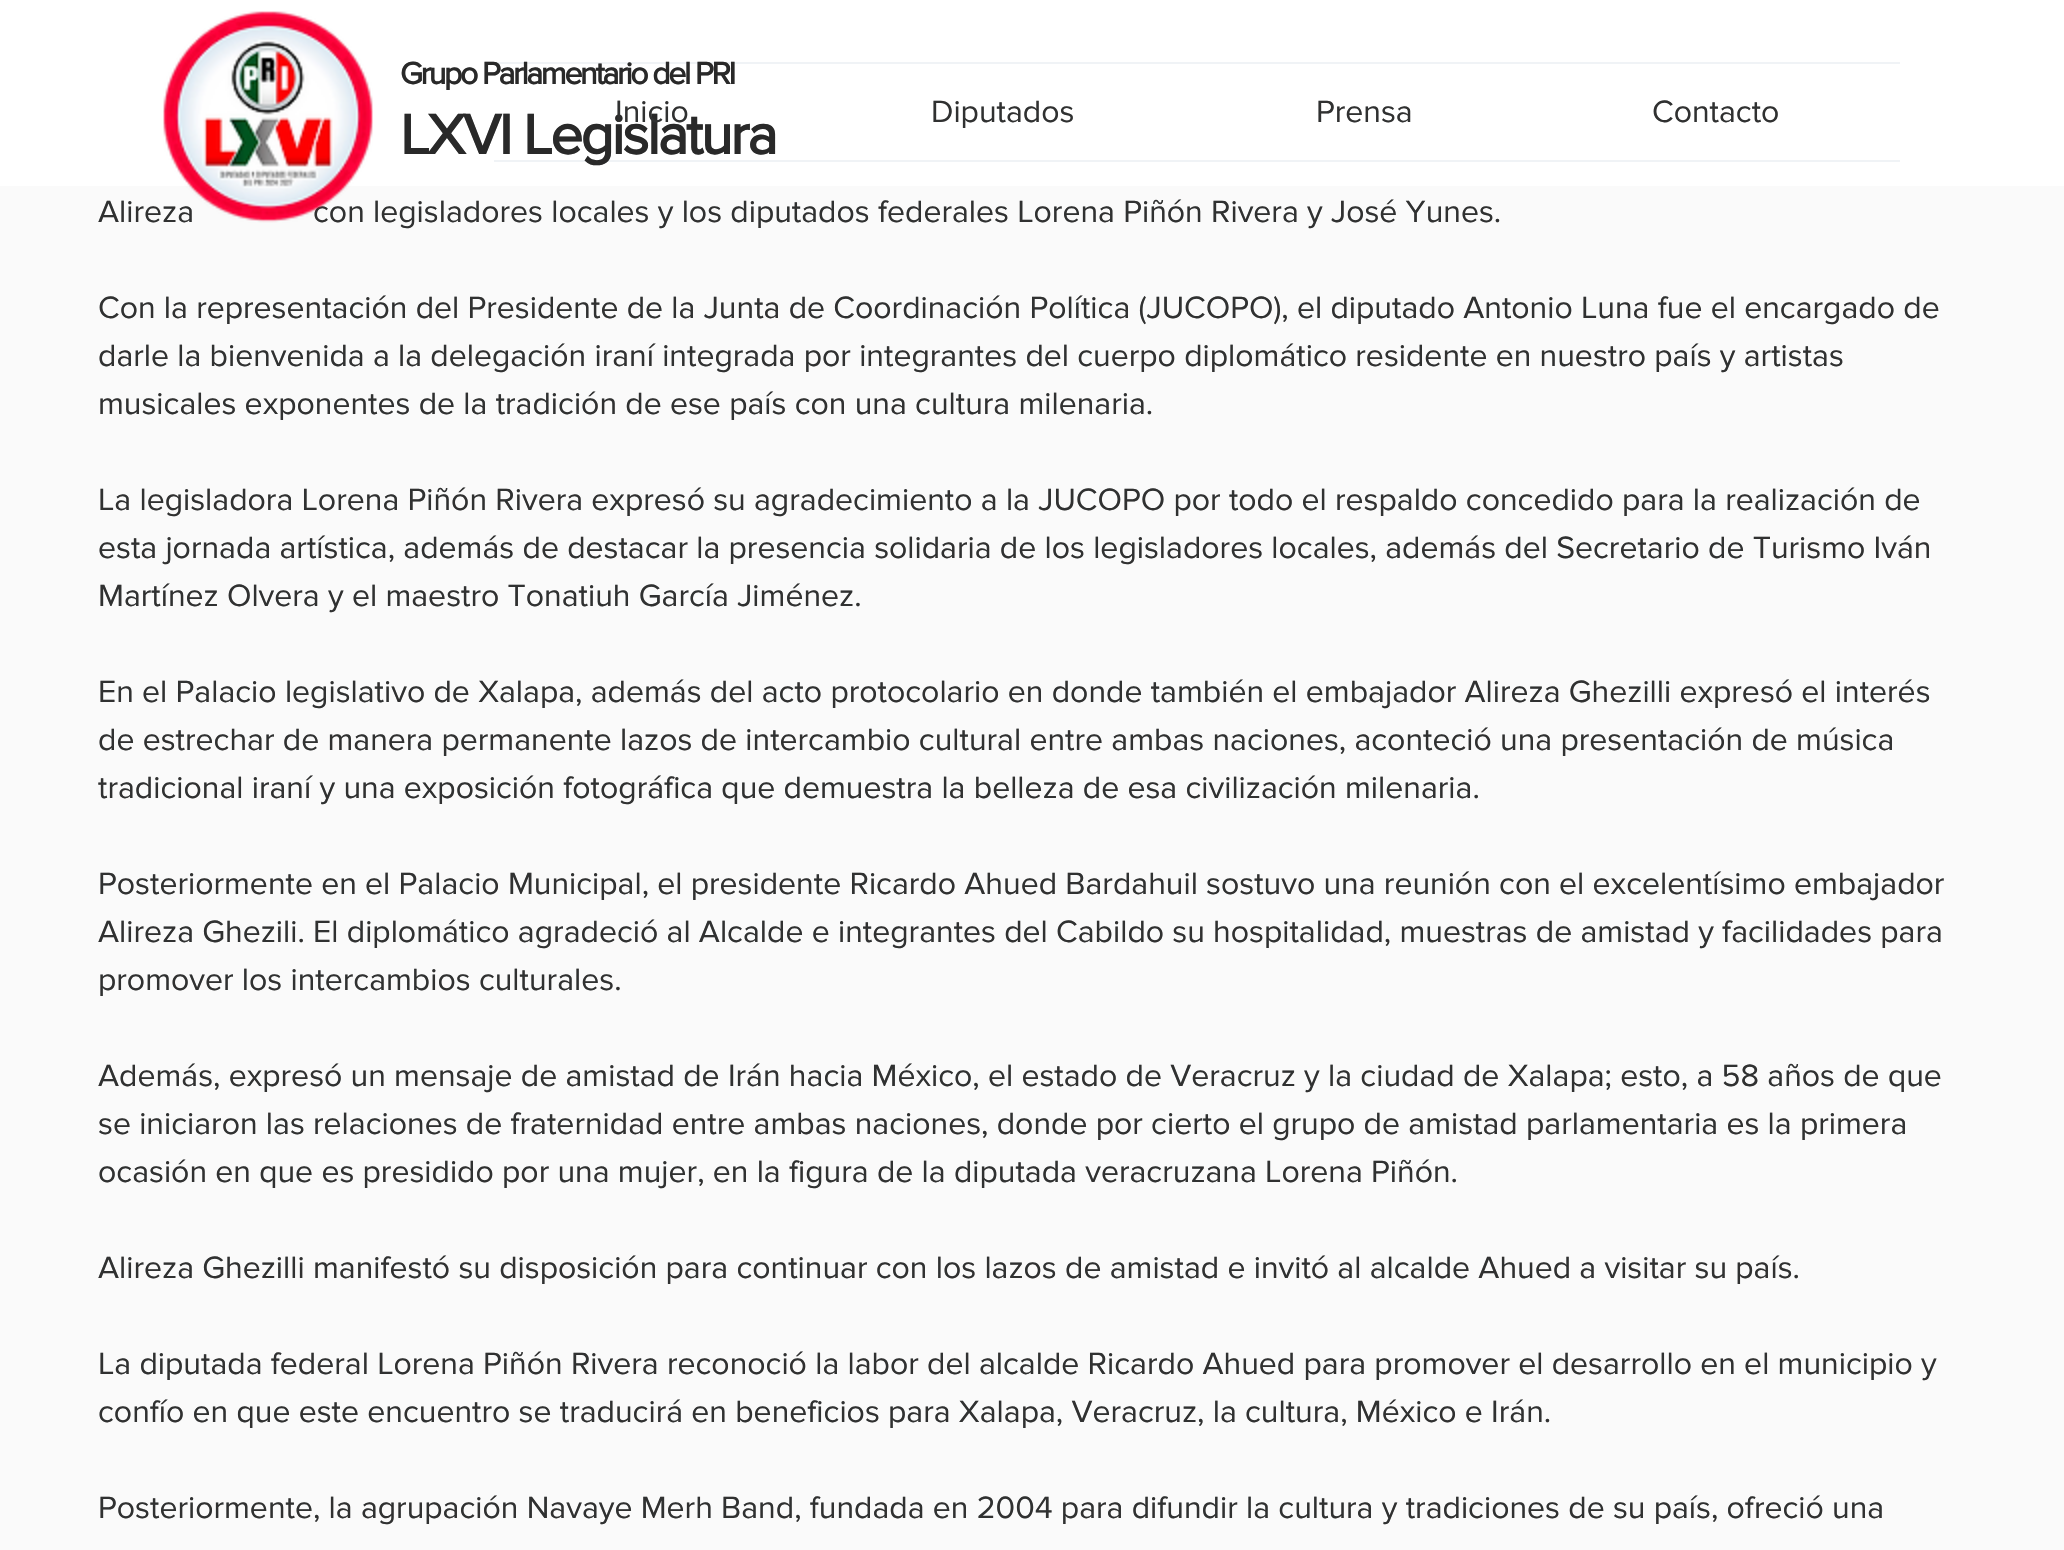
void draw(SkCanvas* canvas) {
    SkPaint paint;
    paint.setAntiAlias(true);
    auto spacedText = [&](const char* s, float x, float y, const SkFont& font, const SkPaint& ink, float letter, float word) {
        std::vector<SkGlyphID> glyphs(font.countText(s, strlen(s), SkTextEncoding::kUTF8));
        std::vector<float> xs(glyphs.size());
        font.textToGlyphs(s, strlen(s), SkTextEncoding::kUTF8, glyphs);
        font.getXPos(glyphs, xs, x);
        float extra = 0;
        for (size_t i = 0; i < glyphs.size(); i++) {
            xs[i] += extra;
            extra += letter + word * (glyphs[i] == font.unicharToGlyph(' '));
        }
        canvas->drawTextBlob(SkTextBlob::MakeFromPosHGlyphs(glyphs, xs, y, font), 0, 0, ink);
    };
    canvas->clear(0xFFFAFAFA);
    paint.setColor(0xFFFFFFFF);
    canvas->drawRect(SkRect::MakeXYWH(0, 0, 2064, 186), paint);
    SkFont font1(fontMgr->matchFamilyStyle("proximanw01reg", SkFontStyle::Normal()), 32);
    font1.setSubpixel(true);
    paint.setColor(0xFF303131);
    canvas->drawString("Alireza", 98, 222, font1, paint);
    canvas->drawString("con legisladores locales y los diputados federales Lorena Piñón Rivera y José Yunes.", 313, 222, font1, paint);
    canvas->drawImageRect(SkImages::DeferredFromEncodedData(SkData::MakeFromFileName("img1.png")), SkRect::MakeXYWH(163, 11, 210, 212), SkSamplingOptions());
    paint.setColor(0xFFF0F3F6);
    canvas->drawRect(SkRect::MakeXYWH(494, 62, 1406, 2), paint);
    SkFont font2(fontMgr->matchFamilyStyle("proximanw01reg", SkFontStyle::Bold()), 32);
    font2.setSubpixel(true);
    paint.setColor(0xFF292929);
    spacedText("Grupo Parlamentario del PRI", 400, 84, font2, paint, -2.3f, 0);
    paint.setColor(0xFFF0F3F6);
    canvas->drawRect(SkRect::MakeXYWH(494, 160, 1406, 2), paint);
    SkFont font3(fontMgr->matchFamilyStyle("proximanw01reg", SkFontStyle::Bold()), 58);
    font3.setSubpixel(true);
    paint.setColor(0xFF292929);
    spacedText("LXVI Legislatura", 400, 154, font3, paint, -2.3f, 0);
    paint.setColor(0xFF303131);
    canvas->drawString("Inicio", 615, 122, font1, paint);
    canvas->drawString("Diputados", 931, 122, font1, paint);
    canvas->drawString("Prensa", 1316, 122, font1, paint);
    canvas->drawString("Contacto", 1652, 122, font1, paint);
    canvas->drawString("Con la representación del Presidente de la Junta de Coordinación Política (JUCOPO), el diputado Antonio Luna fue el encargado de", 98, 318, font1, paint);
    canvas->drawString("darle la bienvenida a la delegación iraní integrada por integrantes del cuerpo diplomático residente en nuestro país y artistas", 98, 366, font1, paint);
    canvas->drawString("musicales exponentes de la tradición de ese país con una cultura milenaria.", 98, 414, font1, paint);
    canvas->drawString("La legisladora Lorena Piñón Rivera expresó su agradecimiento a la JUCOPO por todo el respaldo concedido para la realización de", 98, 510, font1, paint);
    canvas->drawString("esta jornada artística, además de destacar la presencia solidaria de los legisladores locales, además del Secretario de Turismo Iván", 98, 558, font1, paint);
    canvas->drawString("Martínez Olvera y el maestro Tonatiuh García Jiménez.", 98, 606, font1, paint);
    canvas->drawString("En el Palacio legislativo de Xalapa, además del acto protocolario en donde también el embajador Alireza Ghezilli expresó el interés", 98, 702, font1, paint);
    canvas->drawString("de estrechar de manera permanente lazos de intercambio cultural entre ambas naciones, aconteció una presentación de música", 98, 750, font1, paint);
    canvas->drawString("tradicional iraní y una exposición fotográfica que demuestra la belleza de esa civilización milenaria.", 98, 798, font1, paint);
    canvas->drawString("Posteriormente en el Palacio Municipal, el presidente Ricardo Ahued Bardahuil sostuvo una reunión con el excelentísimo embajador", 98, 894, font1, paint);
    canvas->drawString("Alireza Ghezili. El diplomático agradeció al Alcalde e integrantes del Cabildo su hospitalidad, muestras de amistad y facilidades para", 98, 942, font1, paint);
    canvas->drawString("promover los intercambios culturales.", 98, 990, font1, paint);
    canvas->drawString("Además, expresó un mensaje de amistad de Irán hacia México, el estado de Veracruz y la ciudad de Xalapa; esto, a 58 años de que", 98, 1086, font1, paint);
    canvas->drawString("se iniciaron las relaciones de fraternidad entre ambas naciones, donde por cierto el grupo de amistad parlamentaria es la primera", 98, 1134, font1, paint);
    canvas->drawString("ocasión en que es presidido por una mujer, en la figura de la diputada veracruzana Lorena Piñón.", 98, 1182, font1, paint);
    canvas->drawString("Alireza Ghezilli manifestó su disposición para continuar con los lazos de amistad e invitó al alcalde Ahued a visitar su país.", 98, 1278, font1, paint);
    canvas->drawString("La diputada federal Lorena Piñón Rivera reconoció la labor del alcalde Ricardo Ahued para promover el desarrollo en el municipio y", 98, 1374, font1, paint);
    canvas->drawString("confío en que este encuentro se traducirá en beneficios para Xalapa, Veracruz, la cultura, México e Irán.", 98, 1422, font1, paint);
    canvas->drawString("Posteriormente, la agrupación Navaye Merh Band, fundada en 2004 para difundir la cultura y tradiciones de su país, ofreció una", 98, 1518, font1, paint);
}
